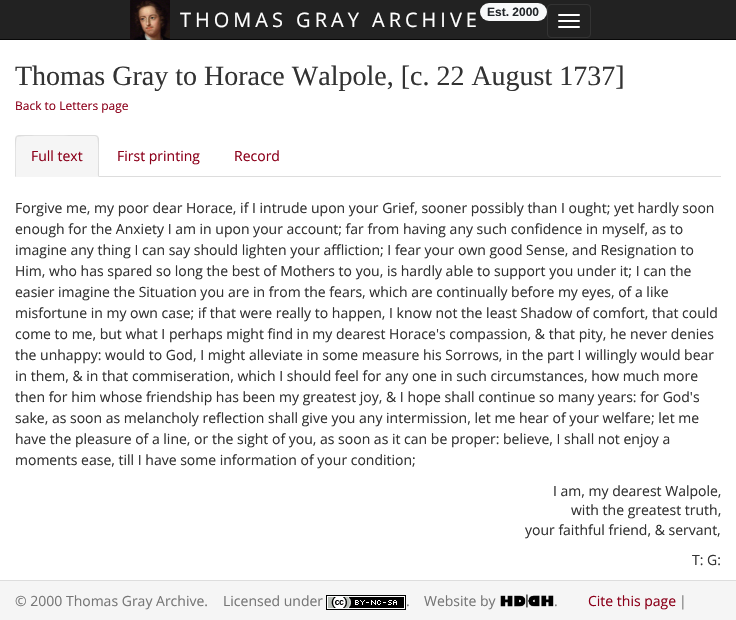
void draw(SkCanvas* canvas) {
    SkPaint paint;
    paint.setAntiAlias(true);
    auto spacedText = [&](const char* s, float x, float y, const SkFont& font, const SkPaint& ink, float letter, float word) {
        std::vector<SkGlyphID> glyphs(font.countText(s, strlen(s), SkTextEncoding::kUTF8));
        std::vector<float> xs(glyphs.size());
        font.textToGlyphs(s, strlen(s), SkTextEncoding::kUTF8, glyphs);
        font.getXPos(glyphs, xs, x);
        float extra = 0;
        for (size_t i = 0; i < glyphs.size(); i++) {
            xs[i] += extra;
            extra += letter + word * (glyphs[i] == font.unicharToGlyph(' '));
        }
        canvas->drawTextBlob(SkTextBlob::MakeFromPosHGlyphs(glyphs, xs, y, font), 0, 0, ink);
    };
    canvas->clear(0xFFFFFFFF);
    paint.setColor(0xFF222222);
    canvas->drawRect(SkRect::MakeXYWH(0, 0, 736, 39), paint);
    paint.setColor(0xFF080808);
    canvas->drawRect(SkRect::MakeXYWH(0, 39, 736, 1), paint);
    canvas->drawImageRect(SkImages::DeferredFromEncodedData(SkData::MakeFromFileName("img1.png")), SkRect::MakeXYWH(130, 0, 40, 40), SkSamplingOptions());
    SkFont font1(fontMgr->matchFamilyStyle("Open Sans", SkFontStyle::Normal()), 20);
    font1.setSubpixel(true);
    paint.setColor(0xFFFFFFFF);
    spacedText("THOMAS GRAY ARCHIVE", 180, 27, font1, paint, 4, 0);
    paint.setColor(0xFFF8F9FA);
    canvas->drawRoundRect(SkRect::MakeXYWH(480, 3, 67, 18), 9, 9, paint);
    SkFont font2(fontMgr->matchFamilyStyle("Liberation Sans", SkFontStyle::Bold()), 12);
    font2.setSubpixel(true);
    paint.setColor(0xFF212529);
    canvas->drawString("Est. 2000", 487, 16, font2, paint);
    paint.setStyle(SkPaint::kStroke_Style);
    paint.setStrokeWidth(1);
    paint.setColor(0xFF333333);
    canvas->drawRoundRect(SkRect::MakeXYWH(547.5f, 4.5f, 43, 33), 3.5f, 3.5f, paint);
    paint.setStyle(SkPaint::kFill_Style);
    paint.setColor(0xFFFFFFFF);
    canvas->drawRoundRect(SkRect::MakeXYWH(558, 14, 22, 2), 1, 1, paint);
    canvas->drawRoundRect(SkRect::MakeXYWH(558, 20, 22, 2), 1, 1, paint);
    canvas->drawRoundRect(SkRect::MakeXYWH(558, 26, 22, 2), 1, 1, paint);
    SkFont font3(fontMgr->matchFamilyStyle("Liberation Serif", SkFontStyle::Normal()), 28);
    font3.setSubpixel(true);
    paint.setColor(0xFF333333);
    canvas->drawString("Thomas Gray to Horace Walpole, [c. 22 August 1737]", 15, 85, font3, paint);
    SkFont font4(fontMgr->matchFamilyStyle("Open Sans", SkFontStyle::Normal()), 12);
    font4.setSubpixel(true);
    paint.setColor(0xFF8C001A);
    canvas->drawString("Back to Letters page", 15, 110, font4, paint);
    paint.setColor(0xFFDDDDDD);
    canvas->drawRect(SkRect::MakeXYWH(99, 176, 622, 1), paint);
    paint.setColor(0xFFF5F5F5);
    canvas->drawPath(SkPathBuilder().moveTo(19, 135).lineTo(95, 135).cubicTo(97, 135, 99, 137, 99, 139).lineTo(99, 177).lineTo(15, 177).lineTo(15, 139).cubicTo(15, 137, 17, 135, 19, 135).close().detach(), paint);
    paint.setColor(0xFFDDDDDD);
    canvas->drawPath(SkPathBuilder().moveTo(19, 135).lineTo(16, 136).lineTo(17, 137).cubicTo(19, 135, 75, 136, 82, 136).lineTo(95, 136).lineTo(97, 137).lineTo(98, 136).lineTo(95, 135).close().detach(), paint);
    canvas->drawPath(SkPathBuilder().moveTo(99, 177).lineTo(99, 139).cubicTo(99, 138, 98, 137, 98, 136).lineTo(97, 137).cubicTo(99, 139, 98, 171, 98, 176).close().detach(), paint);
    canvas->drawPath(SkPathBuilder().moveTo(15, 177).lineTo(16, 176).cubicTo(16, 171, 15, 139, 17, 137).lineTo(16, 136).lineTo(15, 139).close().detach(), paint);
    SkFont font5(fontMgr->matchFamilyStyle("Open Sans", SkFontStyle::Normal()), 14);
    font5.setSubpixel(true);
    paint.setColor(0xFF8C001A);
    canvas->drawString("Full text", 31, 161, font5, paint);
    canvas->drawString("First printing", 117, 161, font5, paint);
    canvas->drawString("Record", 234, 161, font5, paint);
    paint.setColor(0xFF333333);
    canvas->drawString("Forgive me, my poor dear Horace, if I intrude upon your Grief, sooner possibly than I ought; yet hardly soon", 15, 213, font5, paint);
    canvas->drawString("enough for the Anxiety I am in upon your account; far from having any such confidence in myself, as to", 15, 234, font5, paint);
    canvas->drawString("imagine any thing I can say should lighten your affliction; I fear your own good Sense, and Resignation to", 15, 255, font5, paint);
    canvas->drawString("Him, who has spared so long the best of Mothers to you, is hardly able to support you under it; I can the", 15, 276, font5, paint);
    canvas->drawString("easier imagine the Situation you are in from the fears, which are continually before my eyes, of a like", 15, 297, font5, paint);
    canvas->drawString("misfortune in my own case; if that were really to happen, I know not the least Shadow of comfort, that could", 15, 318, font5, paint);
    canvas->drawString("come to me, but what I perhaps might find in my dearest Horace's compassion, & that pity, he never denies", 15, 339, font5, paint);
    canvas->drawString("the unhappy: would to God, I might alleviate in some measure his Sorrows, in the part I willingly would bear", 15, 360, font5, paint);
    canvas->drawString("in them, & in that commiseration, which I should feel for any one in such circumstances, how much more", 15, 381, font5, paint);
    canvas->drawString("then for him whose friendship has been my greatest joy, & I hope shall continue so many years: for God's", 15, 402, font5, paint);
    canvas->drawString("sake, as soon as melancholy reflection shall give you any intermission, let me hear of your welfare; let me", 15, 423, font5, paint);
    canvas->drawString("have the pleasure of a line, or the sight of you, as soon as it can be proper: believe, I shall not enjoy a", 15, 444, font5, paint);
    canvas->drawString("moments ease, till I have some information of your condition;", 15, 465, font5, paint);
    canvas->drawString("I am, my dearest Walpole,", 553, 496, font5, paint);
    canvas->drawString("with the greatest truth,", 571, 515, font5, paint);
    canvas->drawString("your faithful friend, & servant,", 525, 535, font5, paint);
    canvas->drawString("T: G:", 692, 565, font5, paint);
    paint.setColor(0xFFF5F5F5);
    canvas->drawRect(SkRect::MakeXYWH(0, 581, 736, 39), paint);
    paint.setColor(0xFFDDDDDD);
    canvas->drawRect(SkRect::MakeXYWH(0, 580, 736, 1), paint);
    paint.setColor(0xFF777777);
    canvas->drawString("© 2000 Thomas Gray Archive.", 15, 606, font5, paint);
    canvas->drawString("Licensed under", 223, 606, font5, paint);
    canvas->drawImageRect(SkImages::DeferredFromEncodedData(SkData::MakeFromFileName("img2.png")), SkRect::MakeXYWH(326, 595, 80, 15), SkSamplingOptions());
    canvas->drawString(".", 406, 606, font5, paint);
    canvas->drawString("Website by", 424, 606, font5, paint);
    canvas->drawImageRect(SkImages::DeferredFromEncodedData(SkData::MakeFromFileName("img3.png")), SkRect::MakeXYWH(500, 594, 54, 14), SkSamplingOptions());
    canvas->drawString(".", 554, 606, font5, paint);
    paint.setColor(0xFF8C001A);
    canvas->drawString("Cite this page", 588, 606, font5, paint);
    paint.setColor(0xFF777777);
    canvas->drawString("|", 679, 606, font5, paint);
}
